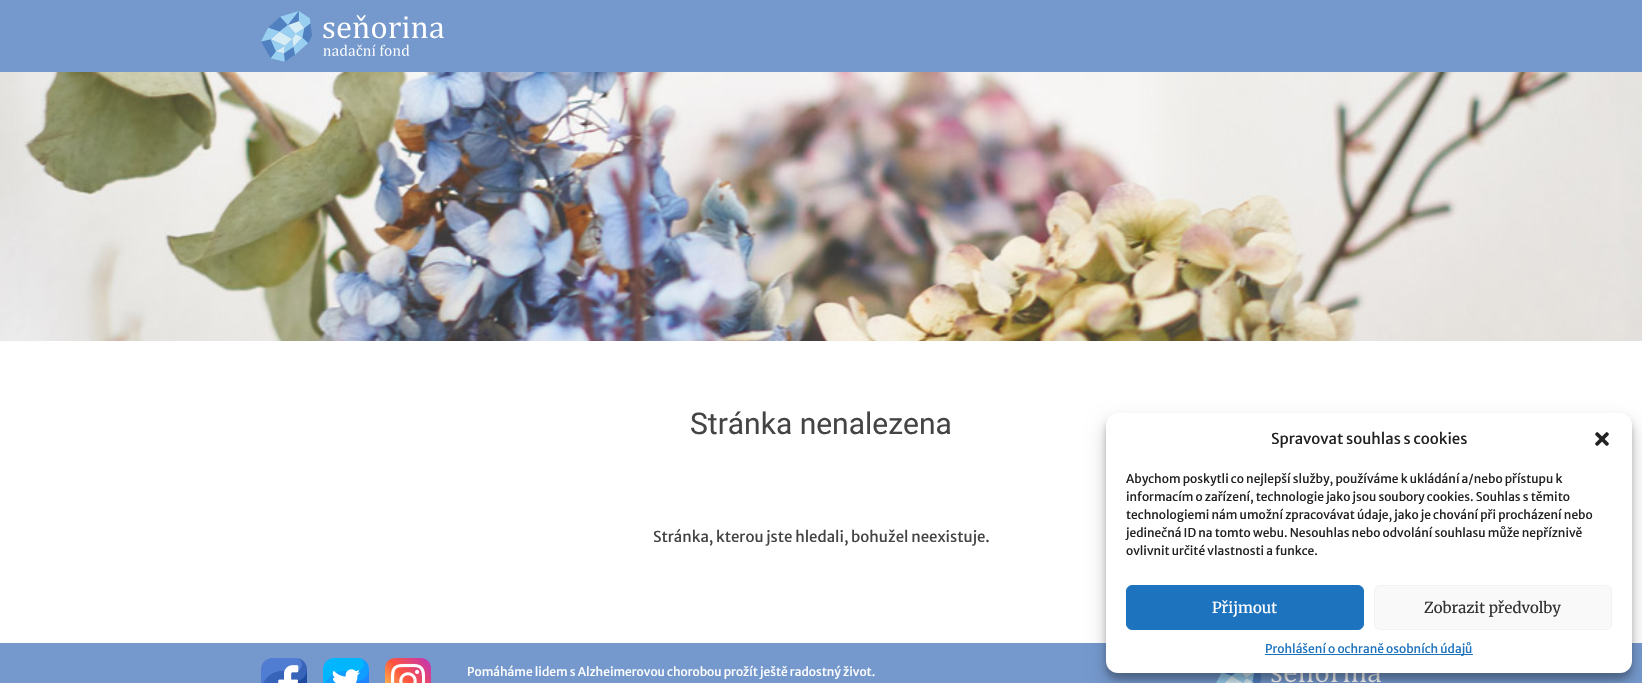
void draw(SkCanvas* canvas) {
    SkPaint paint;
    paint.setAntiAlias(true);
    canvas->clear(0xFFFFFFFF);
    paint.setColor(0xFF7599CD);
    canvas->drawRect(SkRect::MakeXYWH(0, 0, 1642, 72), paint);
    canvas->drawImageRect(SkImages::DeferredFromEncodedData(SkData::MakeFromFileName("img1.png")), SkRect::MakeXYWH(261, 11, 183, 51), SkSamplingOptions());
    canvas->drawImageRect(SkImages::DeferredFromEncodedData(SkData::MakeFromFileName("img2.png")), SkRect::MakeXYWH(0, 72, 1642, 269), SkSamplingOptions());
    SkFont font1(fontMgr->matchFamilyStyle("Roboto", SkFontStyle::Normal()), 30);
    font1.setSubpixel(true);
    paint.setColor(0xFF444444);
    canvas->drawString("Stránka nenalezena", 690, 434, font1, paint);
    SkFont font2(fontMgr->matchFamilyStyle("Merriweather Sans", SkFontStyle::Normal()), 15);
    font2.setSubpixel(true);
    canvas->drawString("Stránka, kterou jste hledali, bohužel neexistuje.", 653, 542, font2, paint);
    paint.setColor(0xFF7599CD);
    canvas->drawRect(SkRect::MakeXYWH(0, 643, 1642, 40), paint);
    canvas->drawImageRect(SkImages::DeferredFromEncodedData(SkData::MakeFromFileName("img3.png")), SkRect::MakeXYWH(261, 658, 46, 25), SkSamplingOptions());
    canvas->drawImageRect(SkImages::DeferredFromEncodedData(SkData::MakeFromFileName("img4.png")), SkRect::MakeXYWH(323, 658, 46, 25), SkSamplingOptions());
    canvas->drawImageRect(SkImages::DeferredFromEncodedData(SkData::MakeFromFileName("img5.png")), SkRect::MakeXYWH(385, 658, 46, 25), SkSamplingOptions());
    SkFont font3(fontMgr->matchFamilyStyle("Merriweather Sans", SkFontStyle::Normal()), 12);
    font3.setSubpixel(true);
    paint.setColor(0xFFFFFFFF);
    canvas->drawString("Pomáháme lidem s Alzheimerovou chorobou prožít ještě radostný život.", 467, 676, font3, paint);
    canvas->drawImageRect(SkImages::DeferredFromEncodedData(SkData::MakeFromFileName("img6.png")), SkRect::MakeXYWH(1216, 673, 165, 10), SkSamplingOptions());
    paint.setColor(0x3B000000);
    paint.setMaskFilter(SkMaskFilter::MakeBlur(kNormal_SkBlurStyle, 3));
    canvas->drawRoundRect(SkRect::MakeXYWH(1106, 419, 526, 260), 12, 12, paint);
    paint.setMaskFilter(nullptr);
    paint.setColor(0x30000000);
    paint.setMaskFilter(SkMaskFilter::MakeBlur(kNormal_SkBlurStyle, 10));
    canvas->drawRoundRect(SkRect::MakeXYWH(1106, 423, 526, 260), 12, 12, paint);
    paint.setMaskFilter(nullptr);
    paint.setColor(0xFFFFFFFF);
    canvas->drawRoundRect(SkRect::MakeXYWH(1106, 413, 526, 260), 12, 12, paint);
    paint.setColor(0xFF222222);
    canvas->drawString("Spravovat souhlas s cookies", 1271, 444, font2, paint);
    canvas->drawImageRect(SkImages::DeferredFromEncodedData(SkData::MakeFromFileName("img7.png")), SkRect::MakeXYWH(1595, 432, 14, 14), SkSamplingOptions());
    canvas->drawString("Abychom poskytli co nejlepší služby, používáme k ukládání a/nebo přístupu k", 1126, 483, font3, paint);
    canvas->drawString("informacím o zařízení, technologie jako jsou soubory cookies. Souhlas s těmito", 1126, 501, font3, paint);
    canvas->drawString("technologiemi nám umožní zpracovávat údaje, jako je chování při procházení nebo", 1126, 519, font3, paint);
    canvas->drawString("jedinečná ID na tomto webu. Nesouhlas nebo odvolání souhlasu může nepříznivě", 1126, 537, font3, paint);
    canvas->drawString("ovlivnit určité vlastnosti a funkce.", 1126, 555, font3, paint);
    paint.setColor(0xFF1E73BE);
    canvas->drawRoundRect(SkRect::MakeXYWH(1126.5f, 585.5f, 237, 44), 5.5f, 5.5f, paint);
    paint.setStyle(SkPaint::kStroke_Style);
    paint.setStrokeWidth(1);
    canvas->drawRoundRect(SkRect::MakeXYWH(1126.5f, 585.5f, 237, 44), 5.5f, 5.5f, paint);
    SkFont font4(fontMgr->matchFamilyStyle("Merriweather", SkFontStyle::Normal()), 15);
    font4.setSubpixel(true);
    paint.setStyle(SkPaint::kFill_Style);
    paint.setColor(0xFFFFFFFF);
    canvas->drawString("Přijmout", 1212, 613, font4, paint);
    paint.setColor(0xFFF9F9F9);
    canvas->drawRoundRect(SkRect::MakeXYWH(1374.5f, 585.5f, 237, 44), 5.5f, 5.5f, paint);
    paint.setStyle(SkPaint::kStroke_Style);
    paint.setColor(0xFFF2F2F2);
    canvas->drawRoundRect(SkRect::MakeXYWH(1374.5f, 585.5f, 237, 44), 5.5f, 5.5f, paint);
    paint.setStyle(SkPaint::kFill_Style);
    paint.setColor(0xFF333333);
    canvas->drawString("Zobrazit předvolby", 1424, 613, font4, paint);
    paint.setColor(0xFF1E73BE);
    canvas->drawRect(SkRect::MakeXYWH(1265, 654, 208, 1), paint);
    canvas->drawString("Prohlášení o ochraně osobních údajů", 1265, 653, font3, paint);
}
